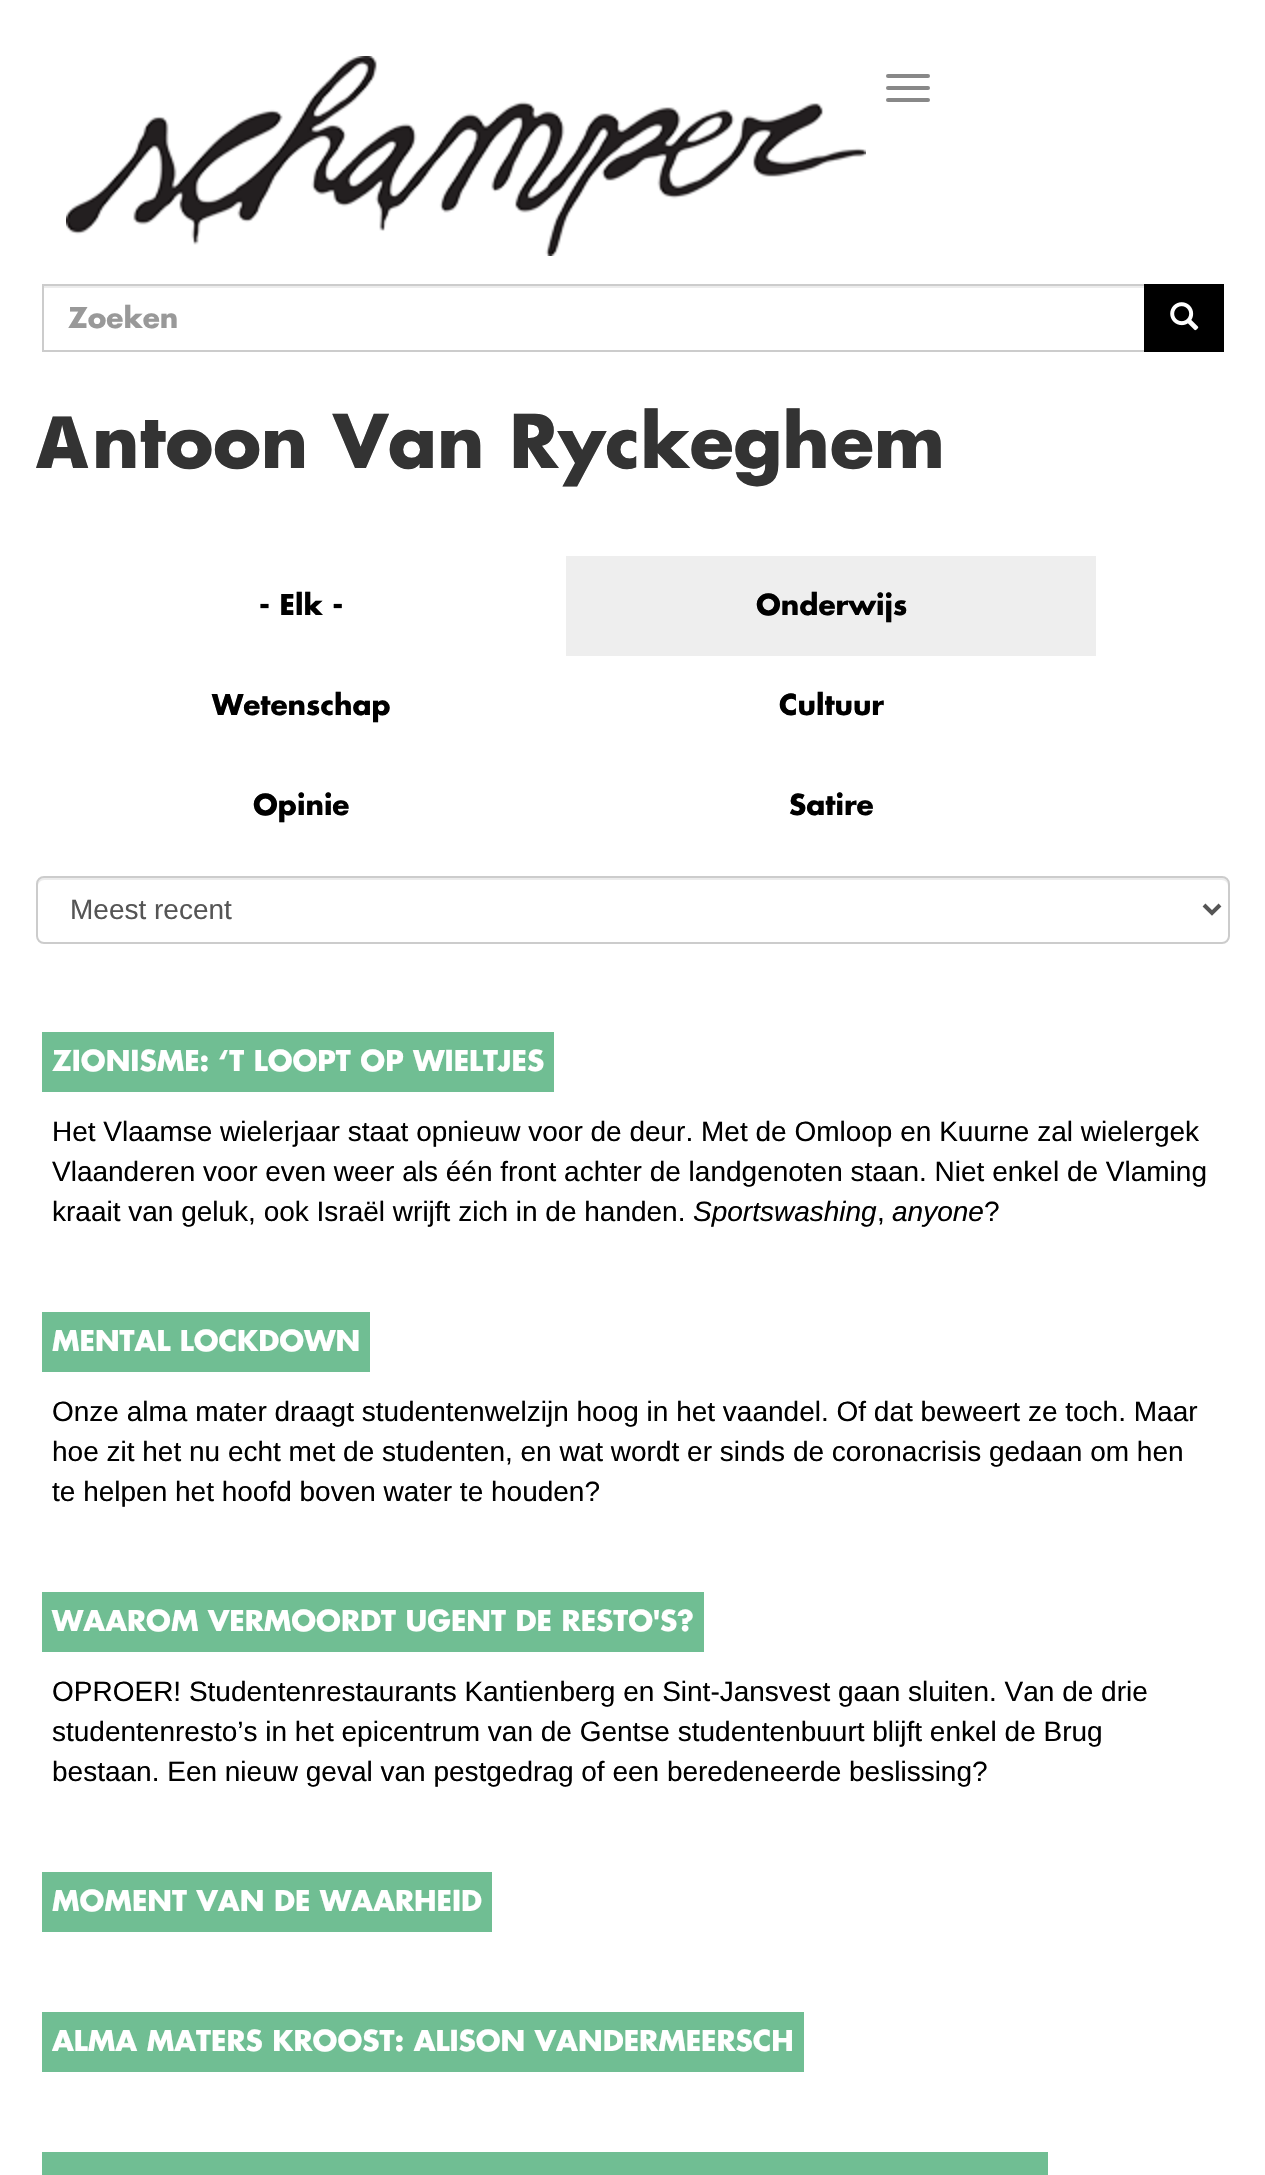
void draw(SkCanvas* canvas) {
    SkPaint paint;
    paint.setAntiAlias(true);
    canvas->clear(0xFFFFFFFF);
    canvas->drawImageRect(SkImages::DeferredFromEncodedData(SkData::MakeFromFileName("img1.png")), SkRect::MakeXYWH(66, 56, 800, 200), SkSamplingOptions());
    paint.setColor(0xFF888888);
    canvas->drawRoundRect(SkRect::MakeXYWH(886, 74, 44, 4), 2, 2, paint);
    canvas->drawRoundRect(SkRect::MakeXYWH(886, 86, 44, 4), 2, 2, paint);
    canvas->drawRoundRect(SkRect::MakeXYWH(886, 98, 44, 4), 2, 2, paint);
    paint.setColor(0xFFECECEC);
    canvas->drawRect(SkRect::MakeXYWH(44, 286, 1100, 2), paint);
    paint.setStyle(SkPaint::kStroke_Style);
    paint.setStrokeWidth(2);
    paint.setColor(0xFFCCCCCC);
    canvas->drawRect(SkRect::MakeXYWH(43, 285, 1102, 66), paint);
    SkFont font1(fontMgr->matchFamilyStyle("Futura", SkFontStyle::Bold()), 28);
    font1.setSubpixel(true);
    paint.setStyle(SkPaint::kFill_Style);
    paint.setColor(0xFF999999);
    canvas->drawString("Zoeken", 68, 328, font1, paint);
    paint.setColor(0xFF000000);
    canvas->drawRect(SkRect::MakeXYWH(1144, 284, 80, 68), paint);
    canvas->drawImageRect(SkImages::DeferredFromEncodedData(SkData::MakeFromFileName("img2.png")), SkRect::MakeXYWH(1170, 302, 29, 29), SkSamplingOptions());
    SkFont font2(fontMgr->matchFamilyStyle("Noto Sans", SkFontStyle(900, SkFontStyle::kNormal_Width, SkFontStyle::kUpright_Slant)), 72);
    font2.setSubpixel(true);
    paint.setColor(0xFF333333);
    canvas->drawString("A", 36, 468, font2, paint);
    SkFont font3(fontMgr->matchFamilyStyle("Futura", SkFontStyle::Bold()), 72);
    font3.setSubpixel(true);
    canvas->drawString("ntoon Van Ryckeghem", 92, 468, font3, paint);
    paint.setColor(0xFF000000);
    canvas->drawString("- Elk -", 259, 615, font1, paint);
    paint.setColor(0xFFEEEEEE);
    canvas->drawRect(SkRect::MakeXYWH(566, 556, 530, 100), paint);
    paint.setColor(0xFF000000);
    canvas->drawString("Onderwijs", 756, 615, font1, paint);
    canvas->drawString("Wetenschap", 212, 715, font1, paint);
    canvas->drawString("Cultuur", 779, 715, font1, paint);
    canvas->drawString("Opinie", 253, 815, font1, paint);
    canvas->drawString("Satire", 789, 815, font1, paint);
    paint.setColor(0xFFECECEC);
    canvas->drawPath(SkPathBuilder().moveTo(44, 880).lineTo(1222, 880).cubicTo(1225, 880, 1228, 883, 1228, 886).lineTo(1228, 884).cubicTo(1228, 881, 1225, 878, 1222, 878).lineTo(44, 878).cubicTo(41, 878, 38, 881, 38, 884).lineTo(38, 886).cubicTo(38, 883, 41, 880, 44, 880).close().detach(), paint);
    paint.setStyle(SkPaint::kStroke_Style);
    paint.setColor(0xFFCCCCCC);
    canvas->drawRoundRect(SkRect::MakeXYWH(37, 877, 1192, 66), 7, 7, paint);
    paint.setStrokeWidth(4);
    paint.setColor(0xFF555555);
    canvas->drawPath(SkPathBuilder().moveTo(1204, 905).lineTo(1212, 913).lineTo(1220, 905).detach(), paint);
    SkFont font4(fontMgr->matchFamilyStyle("Liberation Sans", SkFontStyle::Normal()), 28);
    font4.setSubpixel(true);
    paint.setStyle(SkPaint::kFill_Style);
    canvas->drawString("Meest recent", 70, 919, font4, paint);
    paint.setColor(0xFF70BE93);
    canvas->drawRect(SkRect::MakeXYWH(42, 1032, 512, 60), paint);
    paint.setColor(0xFFFFFFFF);
    canvas->drawString("ZIONISME: ‘T LOOPT OP WIELTJES", 52, 1071, font1, paint);
    paint.setColor(0xFF000000);
    canvas->drawString("Het Vlaamse wielerjaar staat opnieuw voor de deur. Met de Omloop en Kuurne zal wielergek", 52, 1141, font4, paint);
    canvas->drawString("Vlaanderen voor even weer als één front achter de landgenoten staan. Niet enkel de Vlaming", 52, 1181, font4, paint);
    canvas->drawString("kraait van geluk, ook Israël wrijft zich in de handen.", 52, 1221, font4, paint);
    SkFont font5(fontMgr->matchFamilyStyle("Liberation Sans", SkFontStyle::Italic()), 28);
    font5.setSubpixel(true);
    canvas->drawString("Sportswashing", 693, 1221, font5, paint);
    canvas->drawString(",", 877, 1221, font4, paint);
    canvas->drawString("anyone", 892, 1221, font5, paint);
    canvas->drawString("?", 984, 1221, font4, paint);
    paint.setColor(0xFF70BE93);
    canvas->drawRect(SkRect::MakeXYWH(42, 1312, 328, 60), paint);
    paint.setColor(0xFFFFFFFF);
    canvas->drawString("MENTAL LOCKDOWN", 52, 1351, font1, paint);
    paint.setColor(0xFF000000);
    canvas->drawString("Onze alma mater draagt studentenwelzijn hoog in het vaandel. Of dat beweert ze toch. Maar", 52, 1421, font4, paint);
    canvas->drawString("hoe zit het nu echt met de studenten, en wat wordt er sinds de coronacrisis gedaan om hen", 52, 1461, font4, paint);
    canvas->drawString("te helpen het hoofd boven water te houden?", 52, 1501, font4, paint);
    paint.setColor(0xFF70BE93);
    canvas->drawRect(SkRect::MakeXYWH(42, 1592, 662, 60), paint);
    paint.setColor(0xFFFFFFFF);
    canvas->drawString("WAAROM VERMOORDT UGENT DE RESTO'S?", 52, 1631, font1, paint);
    paint.setColor(0xFF000000);
    canvas->drawString("OPROER! Studentenrestaurants Kantienberg en Sint-Jansvest gaan sluiten. Van de drie", 52, 1701, font4, paint);
    canvas->drawString("studentenresto’s in het epicentrum van de Gentse studentenbuurt blijft enkel de Brug", 52, 1741, font4, paint);
    canvas->drawString("bestaan. Een nieuw geval van pestgedrag of een beredeneerde beslissing?", 52, 1781, font4, paint);
    paint.setColor(0xFF70BE93);
    canvas->drawRect(SkRect::MakeXYWH(42, 1872, 450, 60), paint);
    paint.setColor(0xFFFFFFFF);
    canvas->drawString("MOMENT VAN DE WAARHEID", 52, 1911, font1, paint);
    paint.setColor(0xFF70BE93);
    canvas->drawRect(SkRect::MakeXYWH(42, 2012, 762, 60), paint);
    paint.setColor(0xFFFFFFFF);
    canvas->drawString("ALMA MATERS KROOST: ALISON VANDERMEERSCH", 52, 2051, font1, paint);
    paint.setColor(0xFF70BE93);
    canvas->drawRect(SkRect::MakeXYWH(42, 2152, 1006, 23), paint);
}
